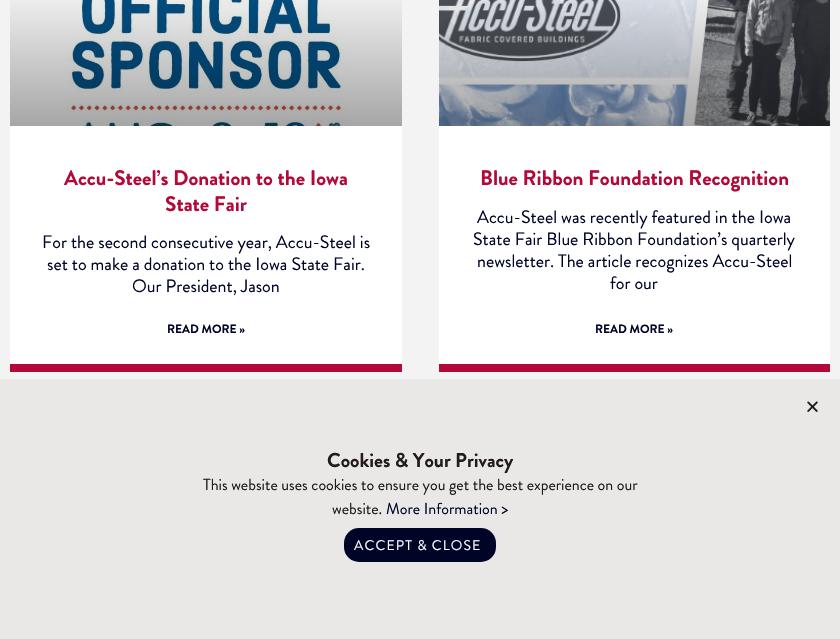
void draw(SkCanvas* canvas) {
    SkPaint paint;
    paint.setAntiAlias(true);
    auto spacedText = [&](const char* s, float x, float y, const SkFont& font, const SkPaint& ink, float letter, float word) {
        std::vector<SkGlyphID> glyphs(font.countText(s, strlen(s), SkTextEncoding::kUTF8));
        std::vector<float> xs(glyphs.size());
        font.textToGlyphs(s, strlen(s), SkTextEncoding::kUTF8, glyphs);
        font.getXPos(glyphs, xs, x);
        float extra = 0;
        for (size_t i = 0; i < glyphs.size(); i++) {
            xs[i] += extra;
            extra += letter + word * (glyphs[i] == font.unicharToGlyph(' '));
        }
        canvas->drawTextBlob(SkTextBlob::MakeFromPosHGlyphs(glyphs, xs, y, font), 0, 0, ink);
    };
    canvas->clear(0xFFF3F3F3);
    paint.setColor(0xFFFFFFFF);
    canvas->drawRect(SkRect::MakeXYWH(10, 0, 392, 364), paint);
    paint.setColor(0xFFB30938);
    canvas->drawRect(SkRect::MakeXYWH(10, 364, 392, 8), paint);
    canvas->drawImageRect(SkImages::DeferredFromEncodedData(SkData::MakeFromFileName("img1.png")), SkRect::MakeXYWH(65, 0, 281, 126), SkSamplingOptions());
    {
        const SkColor colors[] = {0x59000000, 0x00000000};
        const float stops[] = {0, 0.75f};
        const SkPoint ends[] = {{206, 126}, {206, -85}};
        paint.setShader(SkGradientShader::MakeLinear(ends, colors, stops, 2, SkTileMode::kClamp));
        paint.setAlpha(255);
    }
    canvas->drawRect(SkRect::MakeXYWH(10, 0, 392, 126), paint);
    SkFont font1(fontMgr->matchFamilyStyle("Brandon Grotesque", SkFontStyle::Bold()), 21);
    font1.setSubpixel(true);
    paint.setShader(nullptr);
    paint.setColor(0xFFB30938);
    canvas->drawString("Accu-Steel’s Donation to the Iowa", 64, 185, font1, paint);
    canvas->drawString("State Fair", 165, 211, font1, paint);
    SkFont font2(fontMgr->matchFamilyStyle("Brandon Grotesque", SkFontStyle::Normal()), 18);
    font2.setSubpixel(true);
    paint.setColor(0xFF000527);
    canvas->drawString("For the second consecutive year, Accu-Steel is", 42, 248, font2, paint);
    canvas->drawString("set to make a donation to the Iowa State Fair.", 47, 270, font2, paint);
    canvas->drawString("Our President, Jason", 132, 292, font2, paint);
    SkFont font3(fontMgr->matchFamilyStyle("Brandon Grotesque", SkFontStyle::Bold()), 12);
    font3.setSubpixel(true);
    canvas->drawString("READ MORE »", 167, 333, font3, paint);
    paint.setColor(0xFFFFFFFF);
    canvas->drawRect(SkRect::MakeXYWH(439, 126, 391, 238), paint);
    paint.setColor(0xFFB30938);
    canvas->drawRect(SkRect::MakeXYWH(439, 364, 391, 8), paint);
    canvas->drawImageRect(SkImages::DeferredFromEncodedData(SkData::MakeFromFileName("img2.png")), SkRect::MakeXYWH(439, 0, 391, 126), SkSamplingOptions());
    canvas->drawString("Blue Ribbon Foundation Recognition", 480, 185, font1, paint);
    paint.setColor(0xFF000527);
    canvas->drawString("Accu-Steel was recently featured in the Iowa", 477, 223, font2, paint);
    canvas->drawString("State Fair Blue Ribbon Foundation’s quarterly", 473, 245, font2, paint);
    canvas->drawString("newsletter. The article recognizes Accu-Steel", 477, 267, font2, paint);
    canvas->drawString("for our", 610, 289, font2, paint);
    canvas->drawString("READ MORE »", 595, 333, font3, paint);
    paint.setColor(0xFFE9E8E6);
    canvas->drawRect(SkRect::MakeXYWH(0, 379, 840, 260), paint);
    canvas->drawImageRect(SkImages::DeferredFromEncodedData(SkData::MakeFromFileName("img3.png")), SkRect::MakeXYWH(807, 401, 11, 11), SkSamplingOptions());
    SkFont font4(fontMgr->matchFamilyStyle("Brandon Grotesque", SkFontStyle::Bold()), 20);
    font4.setSubpixel(true);
    paint.setColor(0xFF221B19);
    canvas->drawString("Cookies & Your Privacy", 327, 467, font4, paint);
    SkFont font5(fontMgr->matchFamilyStyle("Brandon Grotesque", SkFontStyle::Normal()), 16);
    font5.setSubpixel(true);
    canvas->drawString("This website uses cookies to ensure you get the best experience on our", 203, 490, font5, paint);
    canvas->drawString("website.", 332, 514, font5, paint);
    paint.setColor(0xFF000527);
    canvas->drawString("More Information >", 386, 514, font5, paint);
    canvas->drawRoundRect(SkRect::MakeXYWH(344, 528, 152, 34), 15, 15, paint);
    SkFont font6(fontMgr->matchFamilyStyle("Brandon Grotesque", SkFontStyle::Normal()), 14);
    font6.setSubpixel(true);
    paint.setColor(0xFFFFFFFF);
    spacedText("ACCEPT & CLOSE", 354, 550, font6, paint, 1.1f, 0);
}
